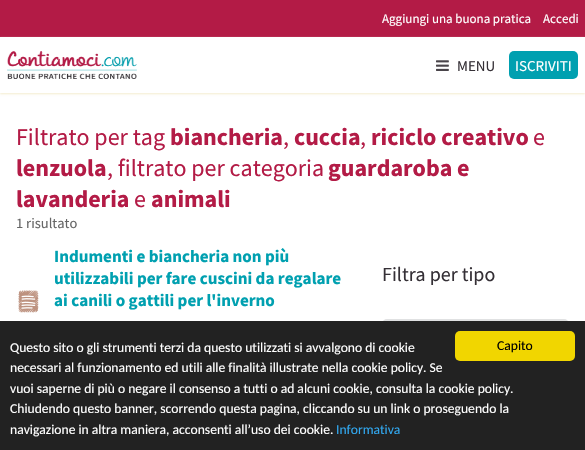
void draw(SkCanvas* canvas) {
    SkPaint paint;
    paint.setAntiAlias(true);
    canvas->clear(0xFFFFFFFF);
    paint.setColor(0xFFB31B46);
    canvas->drawRect(SkRect::MakeXYWH(0, 0, 585, 37), paint);
    SkFont font1(fontMgr->matchFamilyStyle("Source Sans Pro", SkFontStyle::Normal()), 13);
    font1.setSubpixel(true);
    paint.setColor(0xFFFFFFFF);
    canvas->drawString("Aggiungi una buona pratica", 382, 23, font1, paint);
    canvas->drawString("Accedi", 543, 23, font1, paint);
    canvas->save();
    canvas->clipPath(SkPathBuilder(SkPathFillType::kEvenOdd).moveTo(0, 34).lineTo(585, 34).lineTo(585, 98).lineTo(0, 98).close().moveTo(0, 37).lineTo(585, 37).lineTo(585, 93).lineTo(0, 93).close().detach(), true);
    paint.setColor(0xFFF4EDCF);
    paint.setMaskFilter(SkMaskFilter::MakeBlur(kNormal_SkBlurStyle, 1));
    canvas->drawRect(SkRect::MakeXYWH(0, 38, 585, 56), paint);
    paint.setMaskFilter(nullptr);
    canvas->restore();
    canvas->drawImageRect(SkImages::DeferredFromEncodedData(SkData::MakeFromFileName("img1.png")), SkRect::MakeXYWH(7, 51, 130, 28), SkSamplingOptions());
    canvas->drawImageRect(SkImages::DeferredFromEncodedData(SkData::MakeFromFileName("img2.png")), SkRect::MakeXYWH(436, 60, 13, 11), SkSamplingOptions());
    SkFont font2(fontMgr->matchFamilyStyle("Source Sans Pro", SkFontStyle::Normal()), 15);
    font2.setSubpixel(true);
    paint.setColor(0xFF353036);
    canvas->drawString("MENU", 457, 71, font2, paint);
    paint.setColor(0xFF00A0B0);
    canvas->drawRoundRect(SkRect::MakeXYWH(509, 51, 69, 28), 5, 5, paint);
    paint.setColor(0xFFFFFFFF);
    canvas->drawString("ISCRIVITI", 515, 71, font2, paint);
    SkFont font3(fontMgr->matchFamilyStyle("Source Sans Pro", SkFontStyle::Normal()), 24);
    font3.setSubpixel(true);
    paint.setColor(0xFFB31B46);
    canvas->drawString("Filtrato per tag", 16, 145, font3, paint);
    SkFont font4(fontMgr->matchFamilyStyle("Source Sans Pro", SkFontStyle::Bold()), 24);
    font4.setSubpixel(true);
    canvas->drawString("biancheria", 170, 145, font4, paint);
    canvas->drawString(",", 283, 145, font3, paint);
    canvas->drawString("cuccia", 294, 145, font4, paint);
    canvas->drawString(",", 360, 145, font3, paint);
    canvas->drawString("riciclo creativo", 371, 145, font4, paint);
    canvas->drawString("e", 533, 145, font3, paint);
    canvas->drawString("lenzuola", 16, 176, font4, paint);
    canvas->drawString(", filtrato per categoria", 107, 176, font3, paint);
    canvas->drawString("guardaroba e", 328, 176, font4, paint);
    canvas->drawString("lavanderia", 16, 207, font4, paint);
    canvas->drawString("e", 134, 207, font3, paint);
    canvas->drawString("animali", 151, 207, font4, paint);
    SkFont font5(fontMgr->matchFamilyStyle("Source Sans Pro", SkFontStyle::Normal()), 14.5f);
    font5.setSubpixel(true);
    paint.setColor(0xFF666666);
    canvas->drawString("1 risultato", 16, 228, font5, paint);
    canvas->drawImageRect(SkImages::DeferredFromEncodedData(SkData::MakeFromFileName("img3.png")), SkRect::MakeXYWH(18, 290, 21, 23), SkSamplingOptions());
    SkFont font6(fontMgr->matchFamilyStyle("Source Sans Pro", SkFontStyle::Bold()), 17.1f);
    font6.setSubpixel(true);
    paint.setColor(0xFF00A0B0);
    canvas->drawString("Indumenti e biancheria non più", 54, 262, font6, paint);
    canvas->drawString("utilizzabili per fare cuscini da regalare", 54, 284, font6, paint);
    canvas->drawString("ai canili o gattili per l'inverno", 54, 306, font6, paint);
    SkFont font7(fontMgr->matchFamilyStyle("Source Sans Pro", SkFontStyle::Normal()), 20);
    font7.setSubpixel(true);
    paint.setColor(0xFF353036);
    canvas->drawString("Filtra per tipo", 382, 281, font7, paint);
    paint.setColor(0xFFE0E1E2);
    canvas->drawRoundRect(SkRect::MakeXYWH(382, 319, 187, 41), 5, 5, paint);
    paint.setColor(0xFF222222);
    canvas->drawRect(SkRect::MakeXYWH(0, 321, 585, 129), paint);
    SkFont font8(fontMgr->matchFamilyStyle("Carlito", SkFontStyle::Normal()), 13.6f);
    font8.setSubpixel(true);
    paint.setColor(0xFFFFFFFF);
    canvas->drawString("Questo sito o gli strumenti terzi da questo utilizzati si avvalgono di cookie", 10, 352, font8, paint);
    canvas->drawString("necessari al funzionamento ed utili alle finalità illustrate nella cookie policy. Se", 10, 372, font8, paint);
    canvas->drawString("vuoi saperne di più o negare il consenso a tutti o ad alcuni cookie, consulta la cookie policy.", 10, 393, font8, paint);
    canvas->drawString("Chiudendo questo banner, scorrendo questa pagina, cliccando su un link o proseguendo la", 10, 413, font8, paint);
    canvas->drawString("navigazione in altra maniera, acconsenti all’uso dei cookie.", 10, 434, font8, paint);
    paint.setColor(0xFF31A8F0);
    canvas->drawString("Informativa", 336, 434, font8, paint);
    paint.setColor(0xFFF1D600);
    canvas->drawRoundRect(SkRect::MakeXYWH(455, 331, 120, 30), 5, 5, paint);
    paint.setColor(0xFF000000);
    canvas->drawString("Capito", 497, 350, font8, paint);
}
